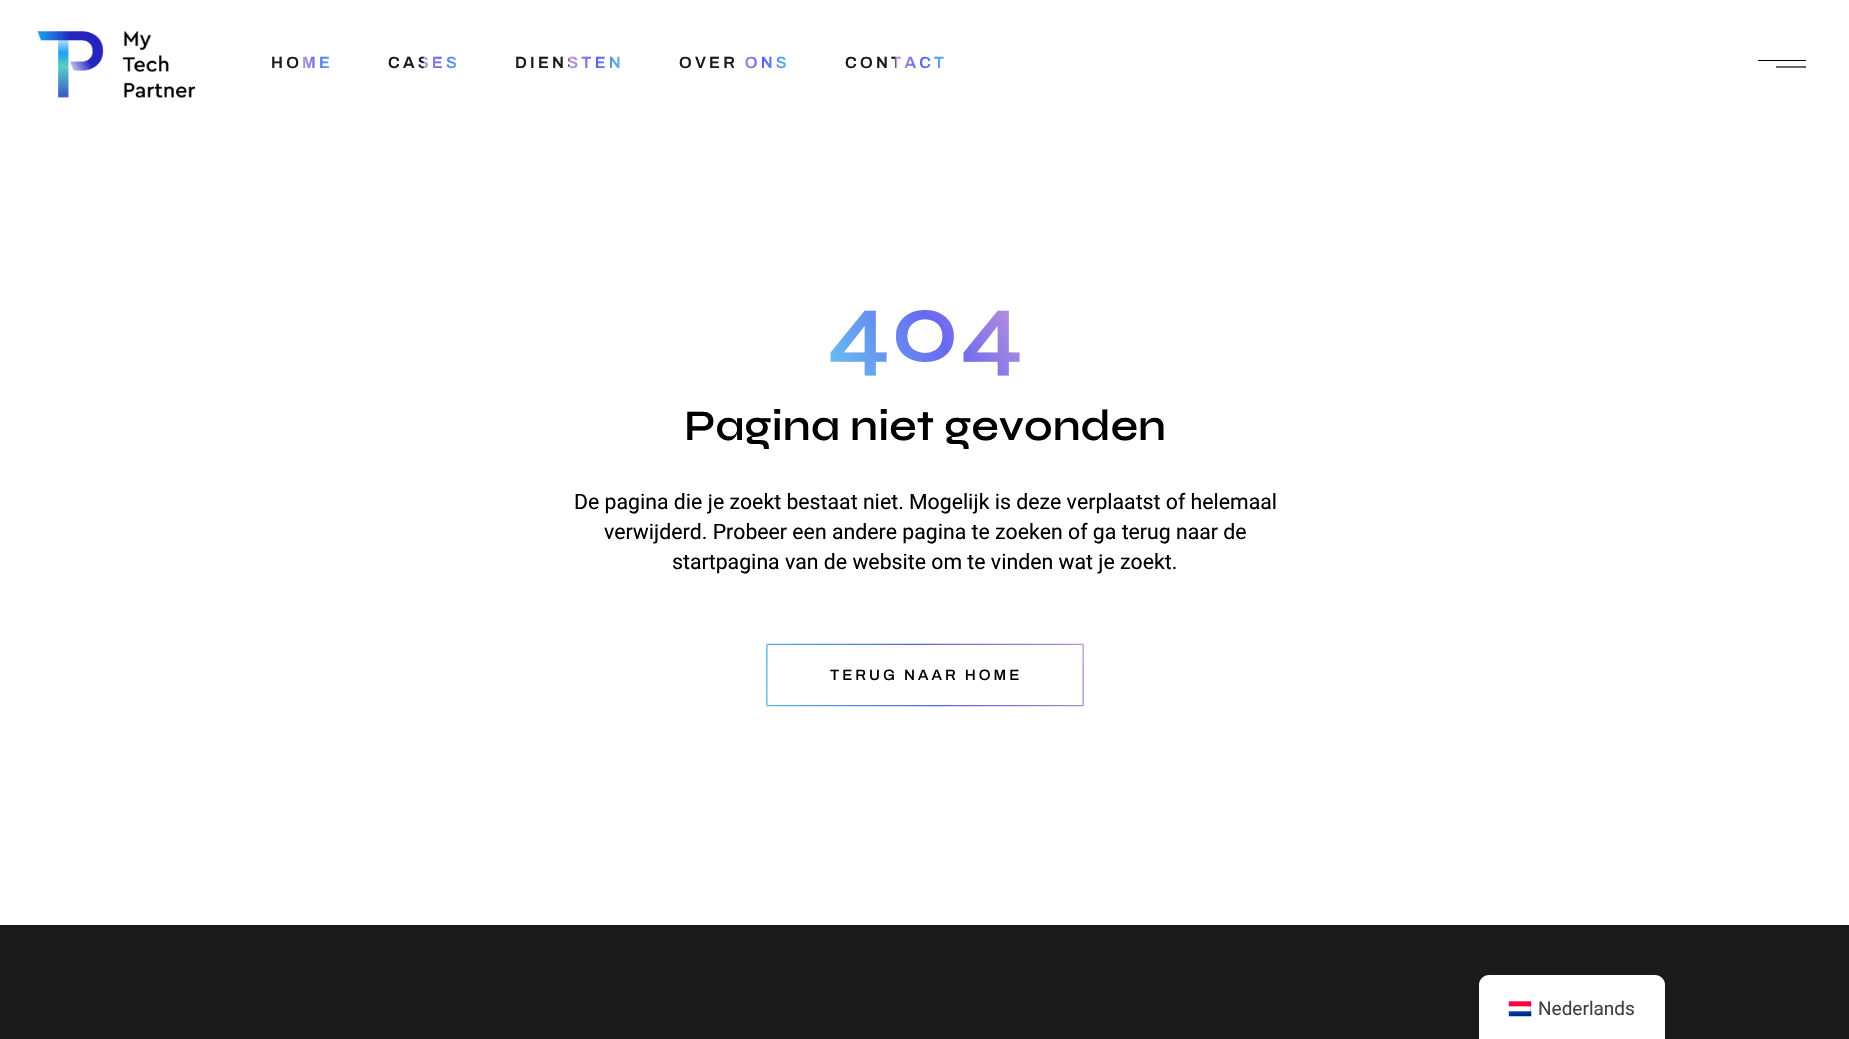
void draw(SkCanvas* canvas) {
    SkPaint paint;
    paint.setAntiAlias(true);
    auto spacedText = [&](const char* s, float x, float y, const SkFont& font, const SkPaint& ink, float letter, float word) {
        std::vector<SkGlyphID> glyphs(font.countText(s, strlen(s), SkTextEncoding::kUTF8));
        std::vector<float> xs(glyphs.size());
        font.textToGlyphs(s, strlen(s), SkTextEncoding::kUTF8, glyphs);
        font.getXPos(glyphs, xs, x);
        float extra = 0;
        for (size_t i = 0; i < glyphs.size(); i++) {
            xs[i] += extra;
            extra += letter + word * (glyphs[i] == font.unicharToGlyph(' '));
        }
        canvas->drawTextBlob(SkTextBlob::MakeFromPosHGlyphs(glyphs, xs, y, font), 0, 0, ink);
    };
    canvas->clear(0xFFFFFFFF);
    canvas->drawImageRect(SkImages::DeferredFromEncodedData(SkData::MakeFromFileName("img1.png")), SkRect::MakeXYWH(37, 31, 158, 67), SkSamplingOptions());
    SkFont font1(fontMgr->matchFamilyStyle("Archivo", SkFontStyle(600, SkFontStyle::kNormal_Width, SkFontStyle::kUpright_Slant)), 16.25f);
    font1.setSubpixel(true);
    {
        const SkColor colors[] = {0xFF5CC2ED, 0xFF5D62EE, 0xFFC298D3, 0xFF1B1B1B, 0xFF1B1B1B};
        const float stops[] = {0, 0.25f, 0.5f, 0.51f, 1};
        const SkPoint ends[] = {{333, 64}, {271, 64}};
        paint.setShader(SkGradientShader::MakeLinear(ends, colors, stops, 5, SkTileMode::kClamp));
        paint.setAlpha(255);
    }
    spacedText("HOME", 271, 68, font1, paint, 3.25f, 0);
    {
        const SkColor colors[] = {0xFF5CC2ED, 0xFF5D62EE, 0xFFC298D3, 0xFF1B1B1B, 0xFF1B1B1B};
        const float stops[] = {0, 0.25f, 0.5f, 0.51f, 1};
        const SkPoint ends[] = {{460, 64}, {388, 64}};
        paint.setShader(SkGradientShader::MakeLinear(ends, colors, stops, 5, SkTileMode::kClamp));
        paint.setAlpha(255);
    }
    spacedText("CASES", 388, 68, font1, paint, 3.25f, 0);
    {
        const SkColor colors[] = {0xFF5CC2ED, 0xFF5D62EE, 0xFFC298D3, 0xFF1B1B1B, 0xFF1B1B1B};
        const float stops[] = {0, 0.25f, 0.5f, 0.51f, 1};
        const SkPoint ends[] = {{624, 64}, {515, 64}};
        paint.setShader(SkGradientShader::MakeLinear(ends, colors, stops, 5, SkTileMode::kClamp));
        paint.setAlpha(255);
    }
    spacedText("DIENSTEN", 515, 68, font1, paint, 3.25f, 0);
    {
        const SkColor colors[] = {0xFF5CC2ED, 0xFF5D62EE, 0xFFC298D3, 0xFF1B1B1B, 0xFF1B1B1B};
        const float stops[] = {0, 0.25f, 0.5f, 0.51f, 1};
        const SkPoint ends[] = {{790, 64}, {679, 64}};
        paint.setShader(SkGradientShader::MakeLinear(ends, colors, stops, 5, SkTileMode::kClamp));
        paint.setAlpha(255);
    }
    spacedText("OVER ONS", 679, 68, font1, paint, 3.25f, 0);
    {
        const SkColor colors[] = {0xFF5CC2ED, 0xFF5D62EE, 0xFFC298D3, 0xFF1B1B1B, 0xFF1B1B1B};
        const float stops[] = {0, 0.25f, 0.5f, 0.51f, 1};
        const SkPoint ends[] = {{947, 64}, {845, 64}};
        paint.setShader(SkGradientShader::MakeLinear(ends, colors, stops, 5, SkTileMode::kClamp));
        paint.setAlpha(255);
    }
    spacedText("CONTACT", 845, 68, font1, paint, 3.25f, 0);
    paint.setShader(nullptr);
    paint.setColor(0xFF000000);
    canvas->drawRect(SkRect::MakeXYWH(1758, 60, 48, 1), paint);
    paint.setStyle(SkPaint::kStroke_Style);
    paint.setStrokeWidth(1.2f);
    canvas->drawPath(SkPathBuilder().moveTo(1776, 67).lineTo(1806, 67).detach(), paint);
    SkFont font2(fontMgr->matchFamilyStyle("Syne", SkFontStyle(600, SkFontStyle::kNormal_Width, SkFontStyle::kUpright_Slant)), 100);
    font2.setSubpixel(true);
    paint.setStyle(SkPaint::kFill_Style);
    {
        const SkColor colors[] = {0xFFCD9DD5, 0xFF6868F1, 0xFF66C7EF};
        const float stops[] = {0, 0.46f, 1};
        const SkPoint ends[] = {{1021, 273}, {829, 384}};
        paint.setShader(SkGradientShader::MakeLinear(ends, colors, stops, 3, SkTileMode::kClamp));
        paint.setAlpha(255);
    }
    canvas->drawString("404", 826, 361, font2, paint);
    SkFont font3(fontMgr->matchFamilyStyle("Syne", SkFontStyle(600, SkFontStyle::kNormal_Width, SkFontStyle::kUpright_Slant)), 43.75f);
    font3.setSubpixel(true);
    paint.setShader(nullptr);
    paint.setColor(0xFF000000);
    canvas->drawString("Pagina niet gevonden", 684, 440, font3, paint);
    SkFont font4(fontMgr->matchFamilyStyle("Heebo", SkFontStyle::Normal()), 21.25f);
    font4.setSubpixel(true);
    canvas->drawString("De pagina die je zoekt bestaat niet. Mogelijk is deze verplaatst of helemaal", 574, 509, font4, paint);
    canvas->drawString("verwijderd. Probeer een andere pagina te zoeken of ga terug naar de", 604, 539, font4, paint);
    canvas->drawString("startpagina van de website om te vinden wat je zoekt.", 672, 569, font4, paint);
    canvas->drawImageRect(SkImages::DeferredFromEncodedData(SkData::MakeFromFileName("img2.png")), SkRect::MakeXYWH(766, 643, 318, 64), SkSamplingOptions());
    SkFont font5(fontMgr->matchFamilyStyle("Archivo", SkFontStyle(500, SkFontStyle::kNormal_Width, SkFontStyle::kUpright_Slant)), 15);
    font5.setSubpixel(true);
    spacedText("TERUG NAAR HOME", 830, 680, font5, paint, 3, 0);
    paint.setColor(0xFF1B1B1B);
    canvas->drawRect(SkRect::MakeXYWH(0, 925, 1849, 114), paint);
    paint.setColor(0xFFFFFFFF);
    canvas->drawPath(SkPathBuilder().moveTo(1489, 975).lineTo(1655, 975).cubicTo(1660.5f, 975, 1665, 979.5f, 1665, 985).lineTo(1665, 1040).lineTo(1479, 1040).lineTo(1479, 985).cubicTo(1479, 979.5f, 1483.5f, 975, 1489, 975).close().detach(), paint);
    canvas->drawImageRect(SkImages::DeferredFromEncodedData(SkData::MakeFromFileName("img3.png")), SkRect::MakeXYWH(1508, 1001, 24, 16), SkSamplingOptions());
    SkFont font6(fontMgr->matchFamilyStyle("Heebo", SkFontStyle::Normal()), 19);
    font6.setSubpixel(true);
    paint.setColor(0xFF404040);
    canvas->drawString("Nederlands", 1538, 1015, font6, paint);
}
